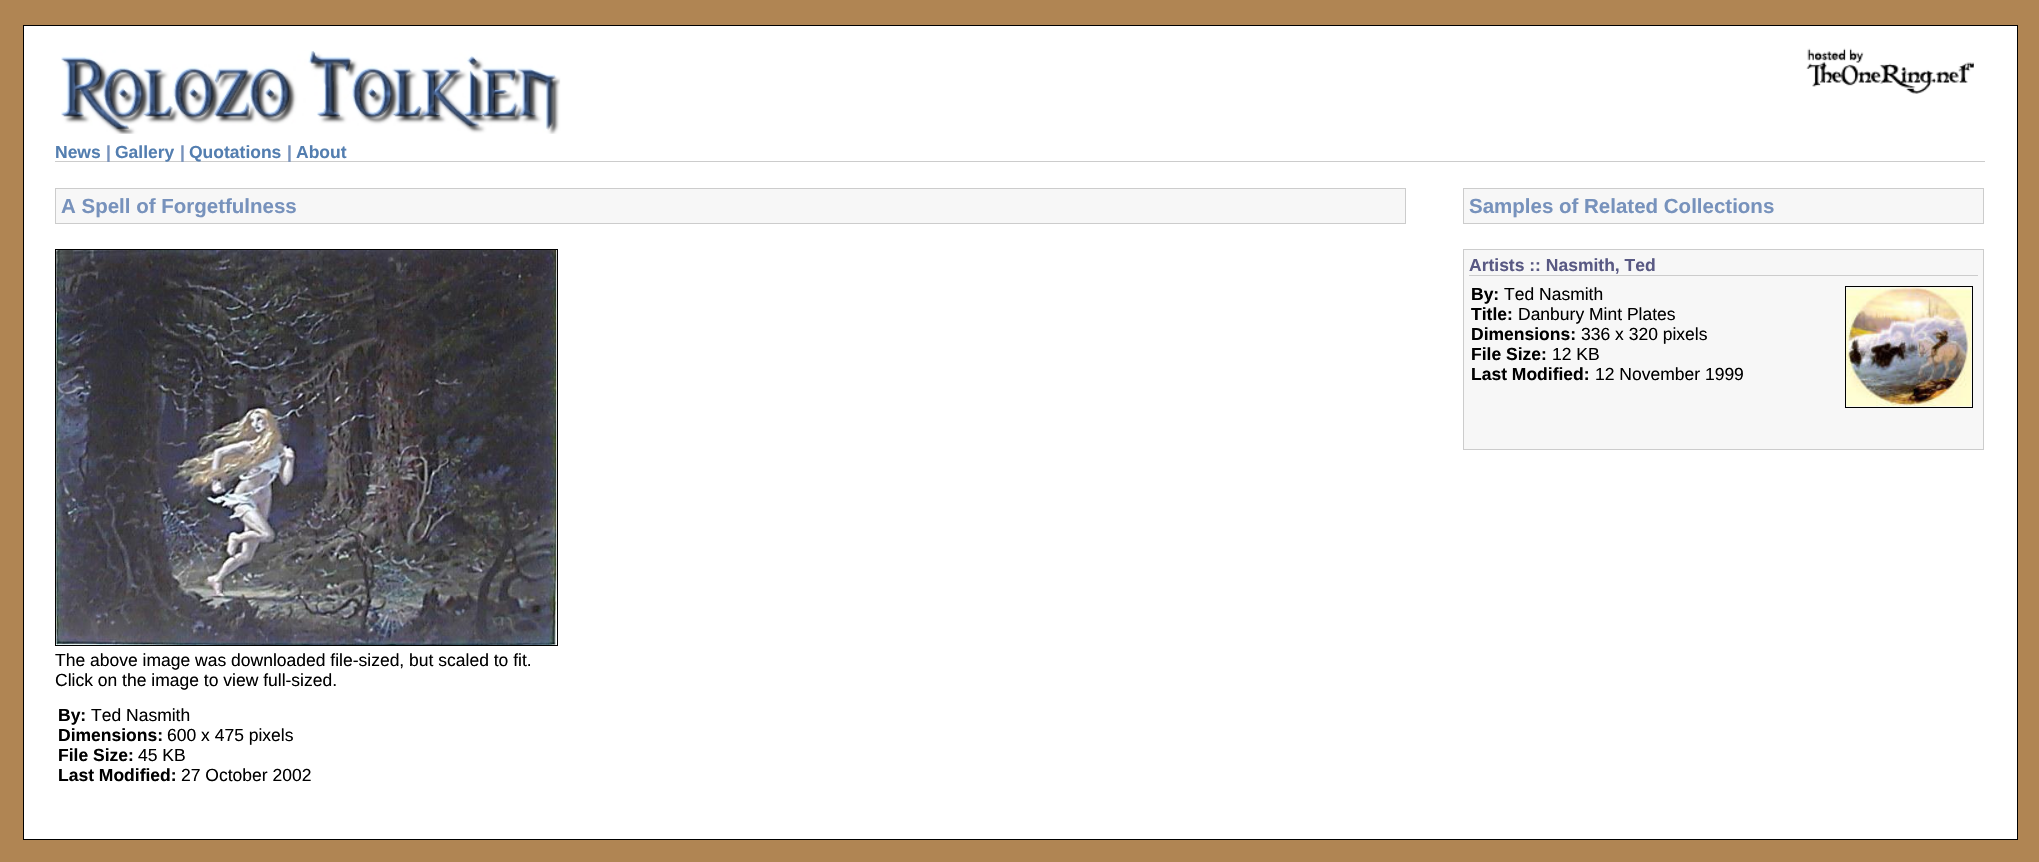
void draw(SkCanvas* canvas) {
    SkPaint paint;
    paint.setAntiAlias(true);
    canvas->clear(0xFFB08553);
    paint.setColor(0xFFFFFFFF);
    canvas->drawRect(SkRect::MakeXYWH(23.5f, 25.5f, 1994, 814), paint);
    paint.setStyle(SkPaint::kStroke_Style);
    paint.setStrokeWidth(1);
    paint.setColor(0xFF000000);
    canvas->drawRect(SkRect::MakeXYWH(23.5f, 25.5f, 1994, 814), paint);
    canvas->drawImageRect(SkImages::DeferredFromEncodedData(SkData::MakeFromFileName("img1.png")), SkRect::MakeXYWH(61, 50, 500, 84), SkSamplingOptions());
    canvas->drawImageRect(SkImages::DeferredFromEncodedData(SkData::MakeFromFileName("img2.png")), SkRect::MakeXYWH(1806, 48, 168, 46), SkSamplingOptions());
    paint.setStyle(SkPaint::kFill_Style);
    paint.setColor(0xFFCCCCCC);
    canvas->drawRect(SkRect::MakeXYWH(55, 161, 1930, 1), paint);
    SkFont font1(fontMgr->matchFamilyStyle("Liberation Sans", SkFontStyle::Bold()), 17.5f);
    font1.setSubpixel(true);
    paint.setColor(0xFF537EB0);
    canvas->drawString("News", 55, 158, font1, paint);
    paint.setColor(0xFF7792BC);
    canvas->drawString("|", 106, 158, font1, paint);
    paint.setColor(0xFF537EB0);
    canvas->drawString("Gallery", 115, 158, font1, paint);
    paint.setColor(0xFF7792BC);
    canvas->drawString("|", 180, 158, font1, paint);
    paint.setColor(0xFF537EB0);
    canvas->drawString("Quotations", 189, 158, font1, paint);
    paint.setColor(0xFF7792BC);
    canvas->drawString("|", 287, 158, font1, paint);
    paint.setColor(0xFF537EB0);
    canvas->drawString("About", 296, 158, font1, paint);
    paint.setColor(0xFFF7F7F7);
    canvas->drawRect(SkRect::MakeXYWH(55.5f, 188.5f, 1350, 35), paint);
    paint.setStyle(SkPaint::kStroke_Style);
    paint.setColor(0xFFCCCCCC);
    canvas->drawRect(SkRect::MakeXYWH(55.5f, 188.5f, 1350, 35), paint);
    SkFont font2(fontMgr->matchFamilyStyle("Liberation Sans", SkFontStyle::Bold()), 20.5f);
    font2.setSubpixel(true);
    paint.setStyle(SkPaint::kFill_Style);
    paint.setColor(0xFF7792BC);
    canvas->drawString("A Spell of Forgetfulness", 61, 213, font2, paint);
    paint.setStyle(SkPaint::kStroke_Style);
    paint.setColor(0xFF000000);
    canvas->drawRect(SkRect::MakeXYWH(55.5f, 249.5f, 502, 396), paint);
    canvas->drawImageRect(SkImages::DeferredFromEncodedData(SkData::MakeFromFileName("img3.png")), SkRect::MakeXYWH(56, 250, 501, 395), SkSamplingOptions());
    SkFont font3(fontMgr->matchFamilyStyle("Liberation Sans", SkFontStyle::Normal()), 17.5f);
    font3.setSubpixel(true);
    paint.setStyle(SkPaint::kFill_Style);
    canvas->drawString("The above image was downloaded file-sized, but scaled to fit.", 55, 666, font3, paint);
    canvas->drawString("Click on the image to view full-sized.", 55, 686, font3, paint);
    canvas->drawString("By:", 58, 721, font1, paint);
    canvas->drawString("Ted Nasmith", 91, 721, font3, paint);
    canvas->drawString("Dimensions:", 58, 741, font1, paint);
    canvas->drawString("600 x 475 pixels", 167, 741, font3, paint);
    canvas->drawString("File Size:", 58, 761, font1, paint);
    canvas->drawString("45 KB", 138, 761, font3, paint);
    canvas->drawString("Last Modified:", 58, 781, font1, paint);
    canvas->drawString("27 October 2002", 181, 781, font3, paint);
    paint.setColor(0xFFF7F7F7);
    canvas->drawRect(SkRect::MakeXYWH(1463.5f, 188.5f, 520, 35), paint);
    paint.setStyle(SkPaint::kStroke_Style);
    paint.setColor(0xFFCCCCCC);
    canvas->drawRect(SkRect::MakeXYWH(1463.5f, 188.5f, 520, 35), paint);
    paint.setStyle(SkPaint::kFill_Style);
    paint.setColor(0xFF7792BC);
    canvas->drawString("Samples of Related Collections", 1469, 213, font2, paint);
    paint.setColor(0xFFF7F7F7);
    canvas->drawRect(SkRect::MakeXYWH(1463.5f, 249.5f, 520, 200), paint);
    paint.setStyle(SkPaint::kStroke_Style);
    paint.setColor(0xFFCCCCCC);
    canvas->drawRect(SkRect::MakeXYWH(1463.5f, 249.5f, 520, 200), paint);
    paint.setStyle(SkPaint::kFill_Style);
    canvas->drawRect(SkRect::MakeXYWH(1469, 275, 509, 1), paint);
    paint.setColor(0xFF595983);
    canvas->drawString("Artists :: Nasmith, Ted", 1469, 271, font1, paint);
    paint.setColor(0xFF000000);
    canvas->drawString("By:", 1471, 300, font1, paint);
    canvas->drawString("Ted Nasmith", 1504, 300, font3, paint);
    canvas->drawString("Title:", 1471, 320, font1, paint);
    canvas->drawString("Danbury Mint Plates", 1518, 320, font3, paint);
    canvas->drawString("Dimensions:", 1471, 340, font1, paint);
    canvas->drawString("336 x 320 pixels", 1581, 340, font3, paint);
    canvas->drawString("File Size:", 1471, 360, font1, paint);
    canvas->drawString("12 KB", 1552, 360, font3, paint);
    canvas->drawString("Last Modified:", 1471, 380, font1, paint);
    canvas->drawString("12 November 1999", 1595, 380, font3, paint);
    paint.setStyle(SkPaint::kStroke_Style);
    canvas->drawRect(SkRect::MakeXYWH(1845.5f, 286.5f, 127, 121), paint);
    canvas->drawImageRect(SkImages::DeferredFromEncodedData(SkData::MakeFromFileName("img4.png")), SkRect::MakeXYWH(1846, 287, 126, 120), SkSamplingOptions());
}
